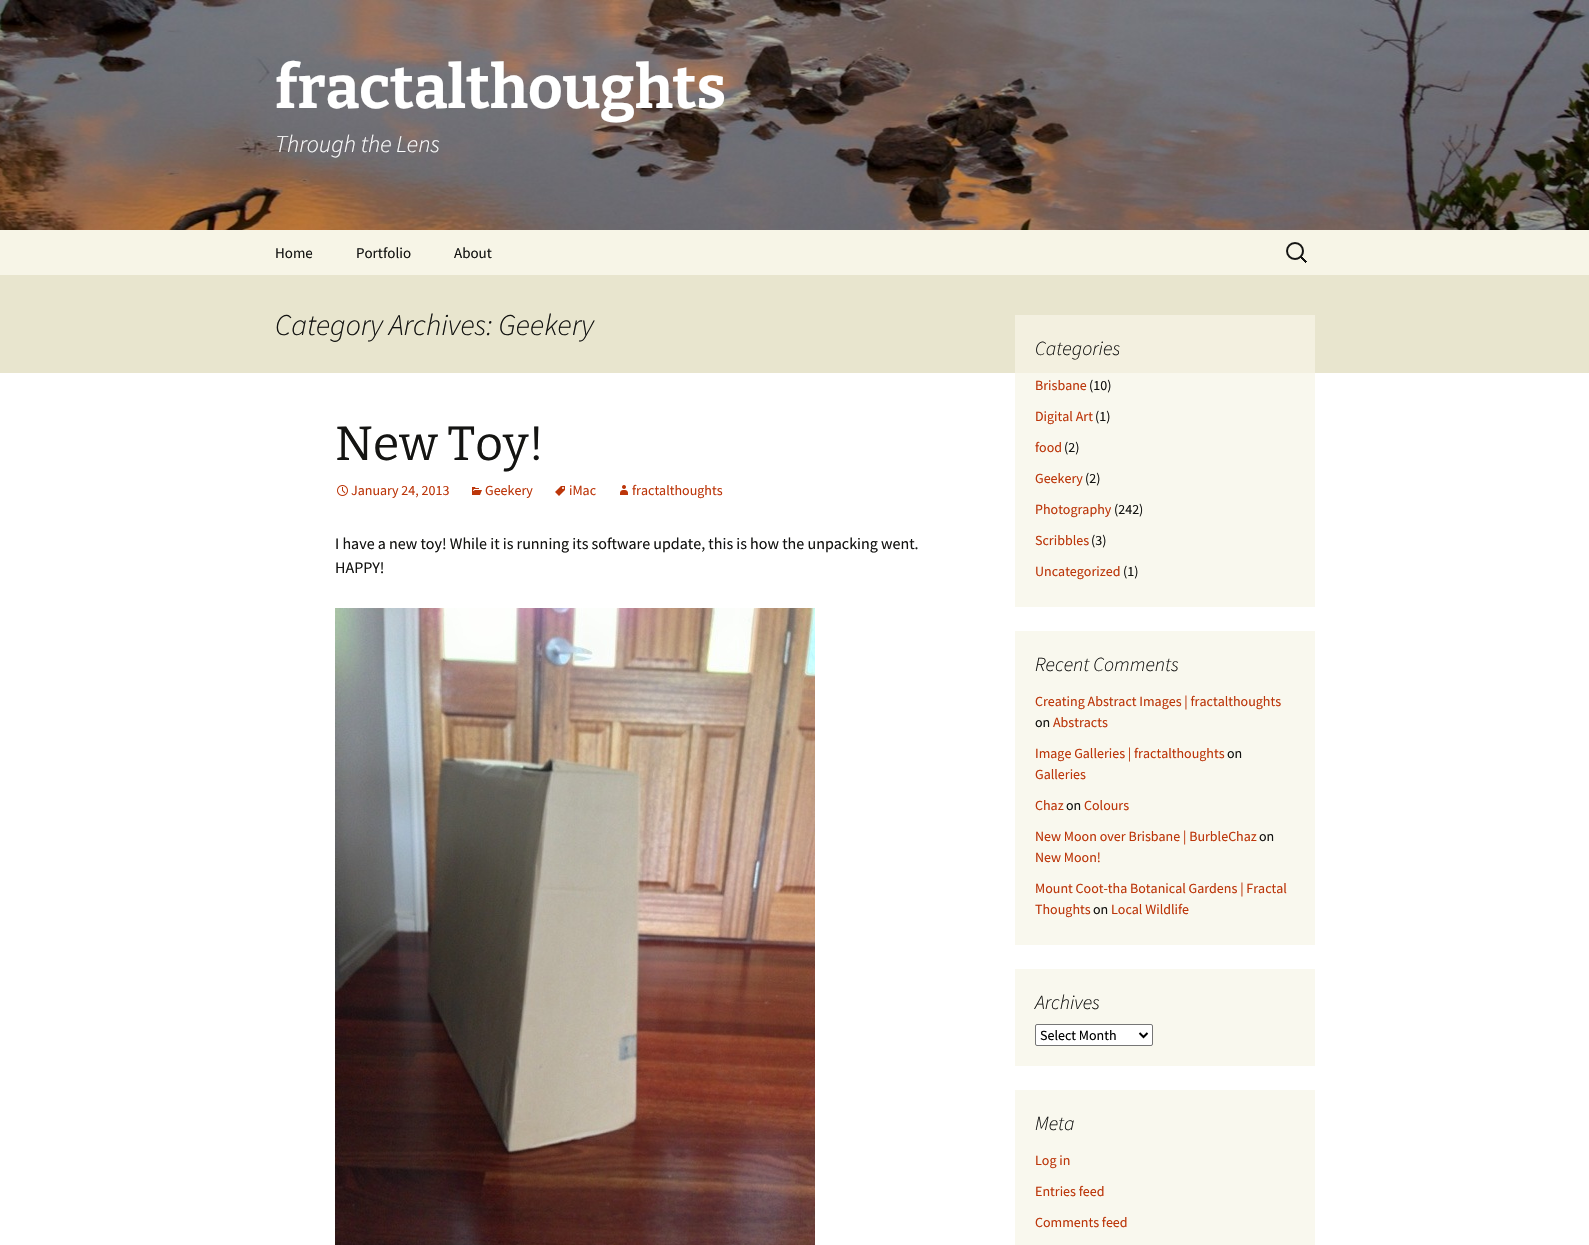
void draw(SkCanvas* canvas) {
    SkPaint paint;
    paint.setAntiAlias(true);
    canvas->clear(0xFFFFFFFF);
    paint.setColor(0xFFF9F8EE);
    canvas->drawRect(SkRect::MakeXYWH(1015, 373, 300, 234), paint);
    canvas->drawImageRect(SkImages::DeferredFromEncodedData(SkData::MakeFromFileName("img1.png")), SkRect::MakeXYWH(0, 0, 1589, 230), SkSamplingOptions());
    SkFont font1(fontMgr->matchFamilyStyle("Bitter", SkFontStyle::Bold()), 60);
    font1.setSubpixel(true);
    paint.setColor(0xFFFFFFFF);
    canvas->drawString("fractalthoughts", 275, 108, font1, paint);
    SkFont font2(fontMgr->matchFamilyStyle("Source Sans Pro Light", SkFontStyle(300, SkFontStyle::kNormal_Width, SkFontStyle::kItalic_Slant)), 24);
    font2.setSubpixel(true);
    canvas->drawString("Through the Lens", 275, 152, font2, paint);
    paint.setColor(0xFFF7F5E7);
    canvas->drawRect(SkRect::MakeXYWH(0, 230, 1589, 45), paint);
    SkFont font3(fontMgr->matchFamilyStyle("Source Sans Pro", SkFontStyle::Normal()), 15);
    font3.setSubpixel(true);
    paint.setColor(0xFF141412);
    canvas->drawString("Home", 275, 258, font3, paint);
    canvas->drawString("Portfolio", 356, 258, font3, paint);
    canvas->drawString("About", 454, 258, font3, paint);
    canvas->drawImageRect(SkImages::DeferredFromEncodedData(SkData::MakeFromFileName("img2.png")), SkRect::MakeXYWH(1286, 242, 21, 21), SkSamplingOptions());
    paint.setColor(0xFFE8E5CE);
    canvas->drawRect(SkRect::MakeXYWH(0, 275, 1589, 98), paint);
    paint.setColor(0xFFF3F0E0);
    canvas->drawRect(SkRect::MakeXYWH(1015, 315, 300, 58), paint);
    SkFont font4(fontMgr->matchFamilyStyle("Source Sans Pro Light", SkFontStyle(300, SkFontStyle::kNormal_Width, SkFontStyle::kItalic_Slant)), 30);
    font4.setSubpixel(true);
    paint.setColor(0xFF141412);
    canvas->drawString("Category Archives: Geekery", 275, 335, font4, paint);
    SkFont font5(fontMgr->matchFamilyStyle("Bitter", SkFontStyle::Normal()), 48);
    font5.setSubpixel(true);
    canvas->drawString("New Toy!", 335, 460, font5, paint);
    canvas->drawImageRect(SkImages::DeferredFromEncodedData(SkData::MakeFromFileName("img3.png")), SkRect::MakeXYWH(337, 485, 11, 11), SkSamplingOptions());
    SkFont font6(fontMgr->matchFamilyStyle("Source Sans Pro", SkFontStyle::Normal()), 14);
    font6.setSubpixel(true);
    paint.setColor(0xFFBC360A);
    canvas->drawString("January 24, 2013", 351, 495, font6, paint);
    canvas->drawImageRect(SkImages::DeferredFromEncodedData(SkData::MakeFromFileName("img4.png")), SkRect::MakeXYWH(472, 487, 10, 8), SkSamplingOptions());
    canvas->drawString("Geekery", 485, 495, font6, paint);
    canvas->drawImageRect(SkImages::DeferredFromEncodedData(SkData::MakeFromFileName("img5.png")), SkRect::MakeXYWH(555, 486, 10, 10), SkSamplingOptions());
    canvas->drawString("iMac", 569, 495, font6, paint);
    canvas->drawImageRect(SkImages::DeferredFromEncodedData(SkData::MakeFromFileName("img6.png")), SkRect::MakeXYWH(620, 485, 8, 10), SkSamplingOptions());
    canvas->drawString("fractalthoughts", 632, 495, font6, paint);
    SkFont font7(fontMgr->matchFamilyStyle("Source Sans Pro", SkFontStyle::Normal()), 16);
    font7.setSubpixel(true);
    paint.setColor(0xFF141412);
    canvas->drawString("I have a new toy! While it is running its software update, this is how the unpacking went.", 335, 549, font7, paint);
    canvas->drawString("HAPPY!", 335, 573, font7, paint);
    canvas->drawImageRect(SkImages::DeferredFromEncodedData(SkData::MakeFromFileName("img7.png")), SkRect::MakeXYWH(335, 608, 480, 637), SkSamplingOptions());
    SkFont font8(fontMgr->matchFamilyStyle("Source Sans Pro Light", SkFontStyle(300, SkFontStyle::kNormal_Width, SkFontStyle::kItalic_Slant)), 20);
    font8.setSubpixel(true);
    canvas->drawString("Categories", 1035, 355, font8, paint);
    paint.setColor(0xFFBC360A);
    canvas->drawString("Brisbane", 1035, 390, font6, paint);
    paint.setColor(0xFF141412);
    canvas->drawString("(10)", 1089, 390, font6, paint);
    paint.setColor(0xFFBC360A);
    canvas->drawString("Digital Art", 1035, 421, font6, paint);
    paint.setColor(0xFF141412);
    canvas->drawString("(1)", 1095, 421, font6, paint);
    paint.setColor(0xFFBC360A);
    canvas->drawString("food", 1035, 452, font6, paint);
    paint.setColor(0xFF141412);
    canvas->drawString("(2)", 1064, 452, font6, paint);
    paint.setColor(0xFFBC360A);
    canvas->drawString("Geekery", 1035, 483, font6, paint);
    paint.setColor(0xFF141412);
    canvas->drawString("(2)", 1085, 483, font6, paint);
    paint.setColor(0xFFBC360A);
    canvas->drawString("Photography", 1035, 514, font6, paint);
    paint.setColor(0xFF141412);
    canvas->drawString("(242)", 1114, 514, font6, paint);
    paint.setColor(0xFFBC360A);
    canvas->drawString("Scribbles", 1035, 545, font6, paint);
    paint.setColor(0xFF141412);
    canvas->drawString("(3)", 1091, 545, font6, paint);
    paint.setColor(0xFFBC360A);
    canvas->drawString("Uncategorized", 1035, 576, font6, paint);
    paint.setColor(0xFF141412);
    canvas->drawString("(1)", 1123, 576, font6, paint);
    paint.setColor(0xFFF9F8EE);
    canvas->drawRect(SkRect::MakeXYWH(1015, 631, 300, 314), paint);
    paint.setColor(0xFF141412);
    canvas->drawString("Recent Comments", 1035, 671, font8, paint);
    paint.setColor(0xFFBC360A);
    canvas->drawString("Creating Abstract Images | fractalthoughts", 1035, 706, font6, paint);
    paint.setColor(0xFF141412);
    canvas->drawString("on", 1035, 727, font6, paint);
    paint.setColor(0xFFBC360A);
    canvas->drawString("Abstracts", 1053, 727, font6, paint);
    canvas->drawString("Image Galleries | fractalthoughts", 1035, 758, font6, paint);
    paint.setColor(0xFF141412);
    canvas->drawString("on", 1227, 758, font6, paint);
    paint.setColor(0xFFBC360A);
    canvas->drawString("Galleries", 1035, 779, font6, paint);
    canvas->drawString("Chaz", 1035, 810, font6, paint);
    paint.setColor(0xFF141412);
    canvas->drawString("on", 1066, 810, font6, paint);
    paint.setColor(0xFFBC360A);
    canvas->drawString("Colours", 1084, 810, font6, paint);
    canvas->drawString("New Moon over Brisbane | BurbleChaz", 1035, 841, font6, paint);
    paint.setColor(0xFF141412);
    canvas->drawString("on", 1259, 841, font6, paint);
    paint.setColor(0xFFBC360A);
    canvas->drawString("New Moon!", 1035, 862, font6, paint);
    canvas->drawString("Mount Coot-tha Botanical Gardens | Fractal", 1035, 893, font6, paint);
    canvas->drawString("Thoughts", 1035, 914, font6, paint);
    paint.setColor(0xFF141412);
    canvas->drawString("on", 1093, 914, font6, paint);
    paint.setColor(0xFFBC360A);
    canvas->drawString("Local Wildlife", 1111, 914, font6, paint);
    paint.setColor(0xFFF9F8EE);
    canvas->drawRect(SkRect::MakeXYWH(1015, 969, 300, 97), paint);
    paint.setColor(0xFF141412);
    canvas->drawString("Archives", 1035, 1009, font8, paint);
    paint.setColor(0xFFFFFFFF);
    canvas->drawRoundRect(SkRect::MakeXYWH(1035.5f, 1024.5f, 117, 21), 1.5f, 1.5f, paint);
    paint.setStyle(SkPaint::kStroke_Style);
    paint.setStrokeWidth(1);
    paint.setColor(0xFF767676);
    canvas->drawRoundRect(SkRect::MakeXYWH(1035.5f, 1024.5f, 117, 21), 1.5f, 1.5f, paint);
    paint.setStrokeWidth(2);
    paint.setColor(0xFF000000);
    canvas->drawPath(SkPathBuilder().moveTo(1139.5f, 1033).lineTo(1143.5f, 1037).lineTo(1147.5f, 1033).detach(), paint);
    paint.setStyle(SkPaint::kFill_Style);
    canvas->drawString("Select Month", 1040, 1040, font6, paint);
    paint.setColor(0xFFF9F8EE);
    canvas->drawRect(SkRect::MakeXYWH(1015, 1090, 300, 155), paint);
    paint.setColor(0xFF141412);
    canvas->drawString("Meta", 1035, 1130, font8, paint);
    paint.setColor(0xFFBC360A);
    canvas->drawString("Log in", 1035, 1165, font6, paint);
    canvas->drawString("Entries feed", 1035, 1196, font6, paint);
    canvas->drawString("Comments feed", 1035, 1227, font6, paint);
}
